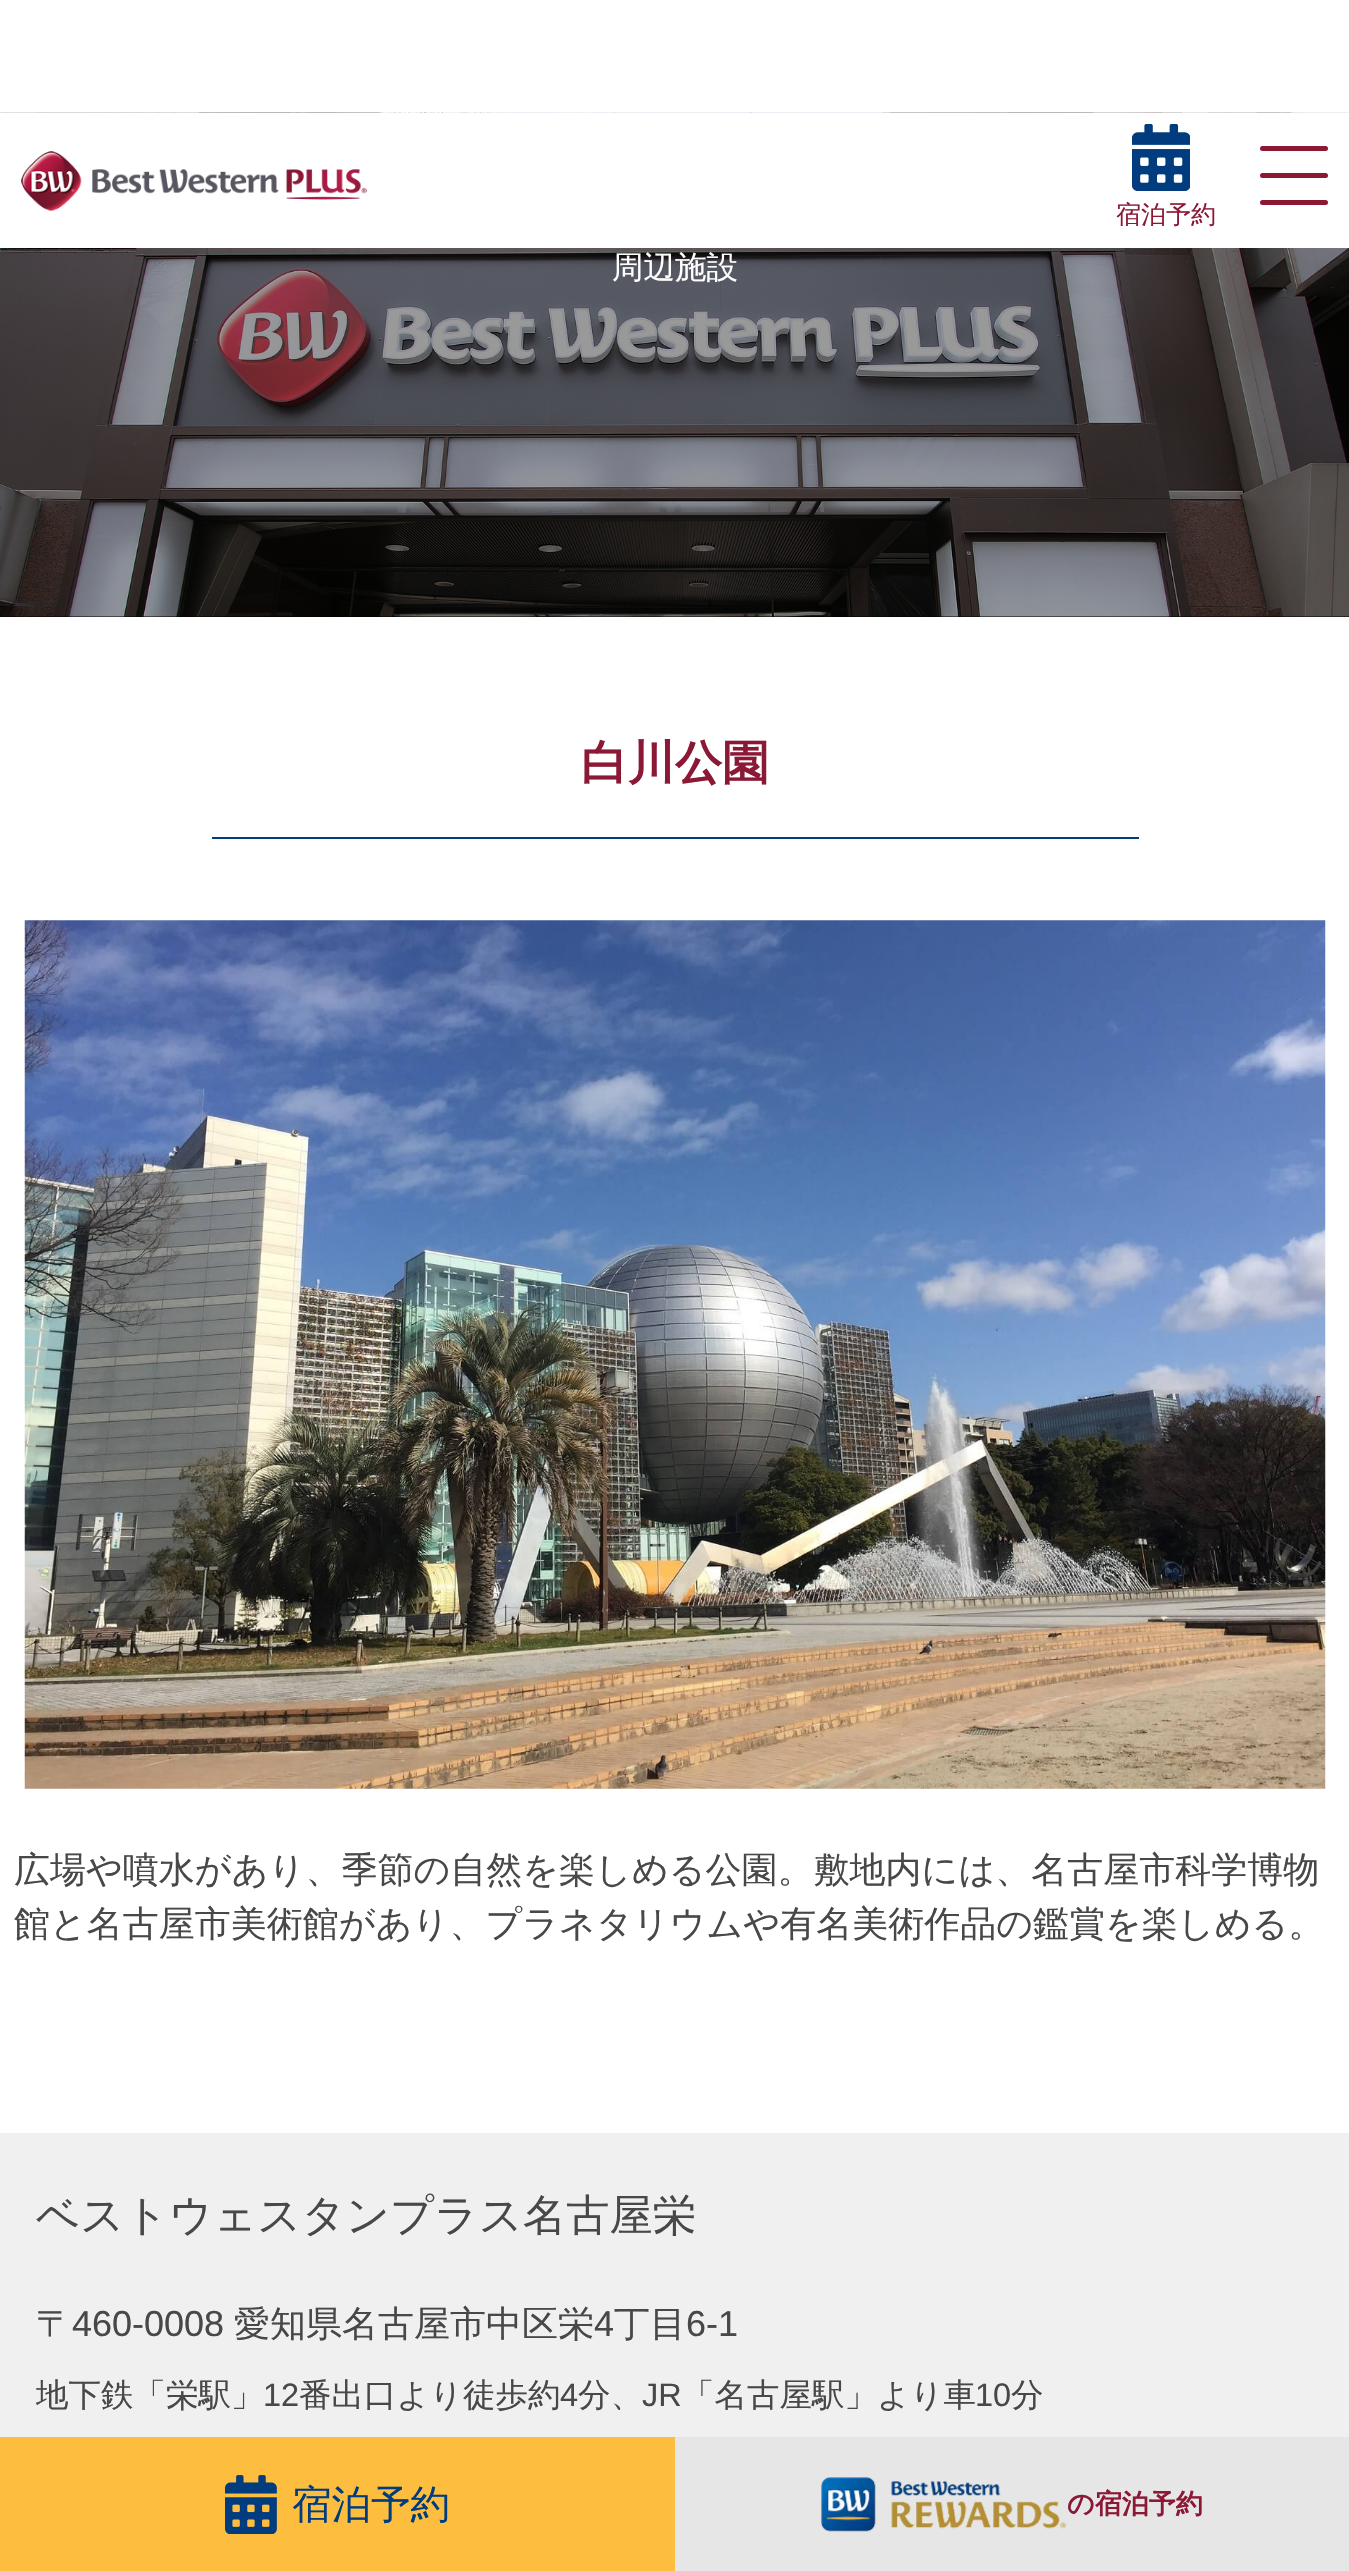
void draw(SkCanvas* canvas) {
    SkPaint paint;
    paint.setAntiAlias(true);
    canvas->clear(0xFFFFFFFF);
    paint.setColor(0xFF000000);
    canvas->drawRect(SkRect::MakeXYWH(0, 248, 1349, 369), paint);
    canvas->drawImageRect(SkImages::DeferredFromEncodedData(SkData::MakeFromFileName("img5.png")), SkRect::MakeXYWH(0, 112, 1349, 505), SkSamplingOptions());
    paint.setColor(0xFFFFFFFF);
    canvas->drawRect(SkRect::MakeXYWH(0, 113, 1349, 135), paint);
    canvas->drawImageRect(SkImages::DeferredFromEncodedData(SkData::MakeFromFileName("img1.png")), SkRect::MakeXYWH(21, 151, 346, 60), SkSamplingOptions());
    paint.setColor(0xFF8B1936);
    canvas->drawRoundRect(SkRect::MakeXYWH(1260, 146, 68, 5), 2.5f, 2.5f, paint);
    canvas->drawRoundRect(SkRect::MakeXYWH(1260, 173, 68, 5), 2.5f, 2.5f, paint);
    canvas->drawRoundRect(SkRect::MakeXYWH(1260, 200, 68, 5), 2.5f, 2.5f, paint);
    canvas->drawImageRect(SkImages::DeferredFromEncodedData(SkData::MakeFromFileName("img2.png")), SkRect::MakeXYWH(1132, 124, 58, 67), SkSamplingOptions());
    SkFont font1(fontMgr->matchFamilyStyle("WenQuanYi Zen Hei", SkFontStyle(500, SkFontStyle::kNormal_Width, SkFontStyle::kUpright_Slant)), 25);
    font1.setSubpixel(true);
    canvas->drawString("宿泊予約", 1116, 223, font1, paint);
    paint.setColor(0xFFFDBE40);
    canvas->drawRect(SkRect::MakeXYWH(0, 2437, 675, 134), paint);
    canvas->drawImageRect(SkImages::DeferredFromEncodedData(SkData::MakeFromFileName("img3.png")), SkRect::MakeXYWH(225, 2475, 52, 59), SkSamplingOptions());
    SkFont font2(fontMgr->matchFamilyStyle("WenQuanYi Zen Hei", SkFontStyle(500, SkFontStyle::kNormal_Width, SkFontStyle::kUpright_Slant)), 39.5f);
    font2.setSubpixel(true);
    paint.setColor(0xFF003C7E);
    canvas->drawString("宿泊予約", 292, 2518, font2, paint);
    paint.setColor(0xFFE6E6E6);
    canvas->drawRect(SkRect::MakeXYWH(675, 2437, 674, 134), paint);
    canvas->drawImageRect(SkImages::DeferredFromEncodedData(SkData::MakeFromFileName("img4.png")), SkRect::MakeXYWH(821, 2477, 246, 55), SkSamplingOptions());
    SkFont font3(fontMgr->matchFamilyStyle("WenQuanYi Zen Hei", SkFontStyle::Bold()), 27);
    font3.setSubpixel(true);
    paint.setColor(0xFF8B1936);
    canvas->drawString("の宿泊予約", 1067, 2513, font3, paint);
    SkFont font4(fontMgr->matchFamilyStyle("WenQuanYi Zen Hei", SkFontStyle(500, SkFontStyle::kNormal_Width, SkFontStyle::kUpright_Slant)), 31.5f);
    font4.setSubpixel(true);
    paint.setColor(0xFFFFFFFF);
    canvas->drawString("周辺施設", 612, 278, font4, paint);
    SkFont font5(fontMgr->matchFamilyStyle("WenQuanYi Zen Hei", SkFontStyle::Bold()), 47);
    font5.setSubpixel(true);
    paint.setColor(0xFF8B1936);
    canvas->drawString("白川公園", 581, 779, font5, paint);
    paint.setColor(0xFF003C7E);
    canvas->drawRect(SkRect::MakeXYWH(212, 837, 927, 2), paint);
    canvas->drawImageRect(SkImages::DeferredFromEncodedData(SkData::MakeFromFileName("img6.png")), SkRect::MakeXYWH(24, 920, 1302, 869), SkSamplingOptions());
    SkFont font6(fontMgr->matchFamilyStyle("WenQuanYi Zen Hei", SkFontStyle(500, SkFontStyle::kNormal_Width, SkFontStyle::kUpright_Slant)), 36);
    font6.setSubpixel(true);
    paint.setColor(0xFF484848);
    canvas->drawString("広場や噴水があり、季節の自然を楽しめる公園。敷地内には、名古屋市科学博物", 14, 1882, font6, paint);
    canvas->drawString("館と名古屋市美術館があり、プラネタリウムや有名美術作品の鑑賞を楽しめる。", 14, 1936, font6, paint);
    paint.setColor(0xFFF0F0F0);
    canvas->drawRect(SkRect::MakeXYWH(0, 2133, 1349, 304), paint);
    SkFont font7(fontMgr->matchFamilyStyle("WenQuanYi Zen Hei", SkFontStyle(500, SkFontStyle::kNormal_Width, SkFontStyle::kUpright_Slant)), 43.25f);
    font7.setSubpixel(true);
    paint.setColor(0xFF484848);
    canvas->drawString("ベストウェスタンプラス名古屋栄", 36, 2230, font7, paint);
    canvas->drawString("〒", 36, 2336, font6, paint);
    SkFont font8(fontMgr->matchFamilyStyle("Liberation Sans", SkFontStyle::Normal()), 36);
    font8.setSubpixel(true);
    canvas->drawString("460-0008", 72, 2336, font8, paint);
    canvas->drawString("愛知県名古屋市中区栄", 234, 2336, font6, paint);
    canvas->drawString("4", 594, 2336, font8, paint);
    canvas->drawString("丁目", 614, 2336, font6, paint);
    canvas->drawString("6-1", 686, 2336, font8, paint);
    SkFont font9(fontMgr->matchFamilyStyle("WenQuanYi Zen Hei", SkFontStyle(500, SkFontStyle::kNormal_Width, SkFontStyle::kUpright_Slant)), 32.5f);
    font9.setSubpixel(true);
    canvas->drawString("地下鉄「栄駅」", 36, 2406, font9, paint);
    SkFont font10(fontMgr->matchFamilyStyle("Liberation Sans", SkFontStyle::Normal()), 32.5f);
    font10.setSubpixel(true);
    canvas->drawString("12", 263, 2406, font10, paint);
    canvas->drawString("番出口より徒歩約", 299, 2406, font9, paint);
    canvas->drawString("4", 560, 2406, font10, paint);
    canvas->drawString("分、", 578, 2406, font9, paint);
    canvas->drawString("JR", 642, 2406, font10, paint);
    canvas->drawString("「名古屋駅」より車", 682, 2406, font9, paint);
    canvas->drawString("10", 975, 2406, font10, paint);
    canvas->drawString("分", 1011, 2406, font9, paint);
}
